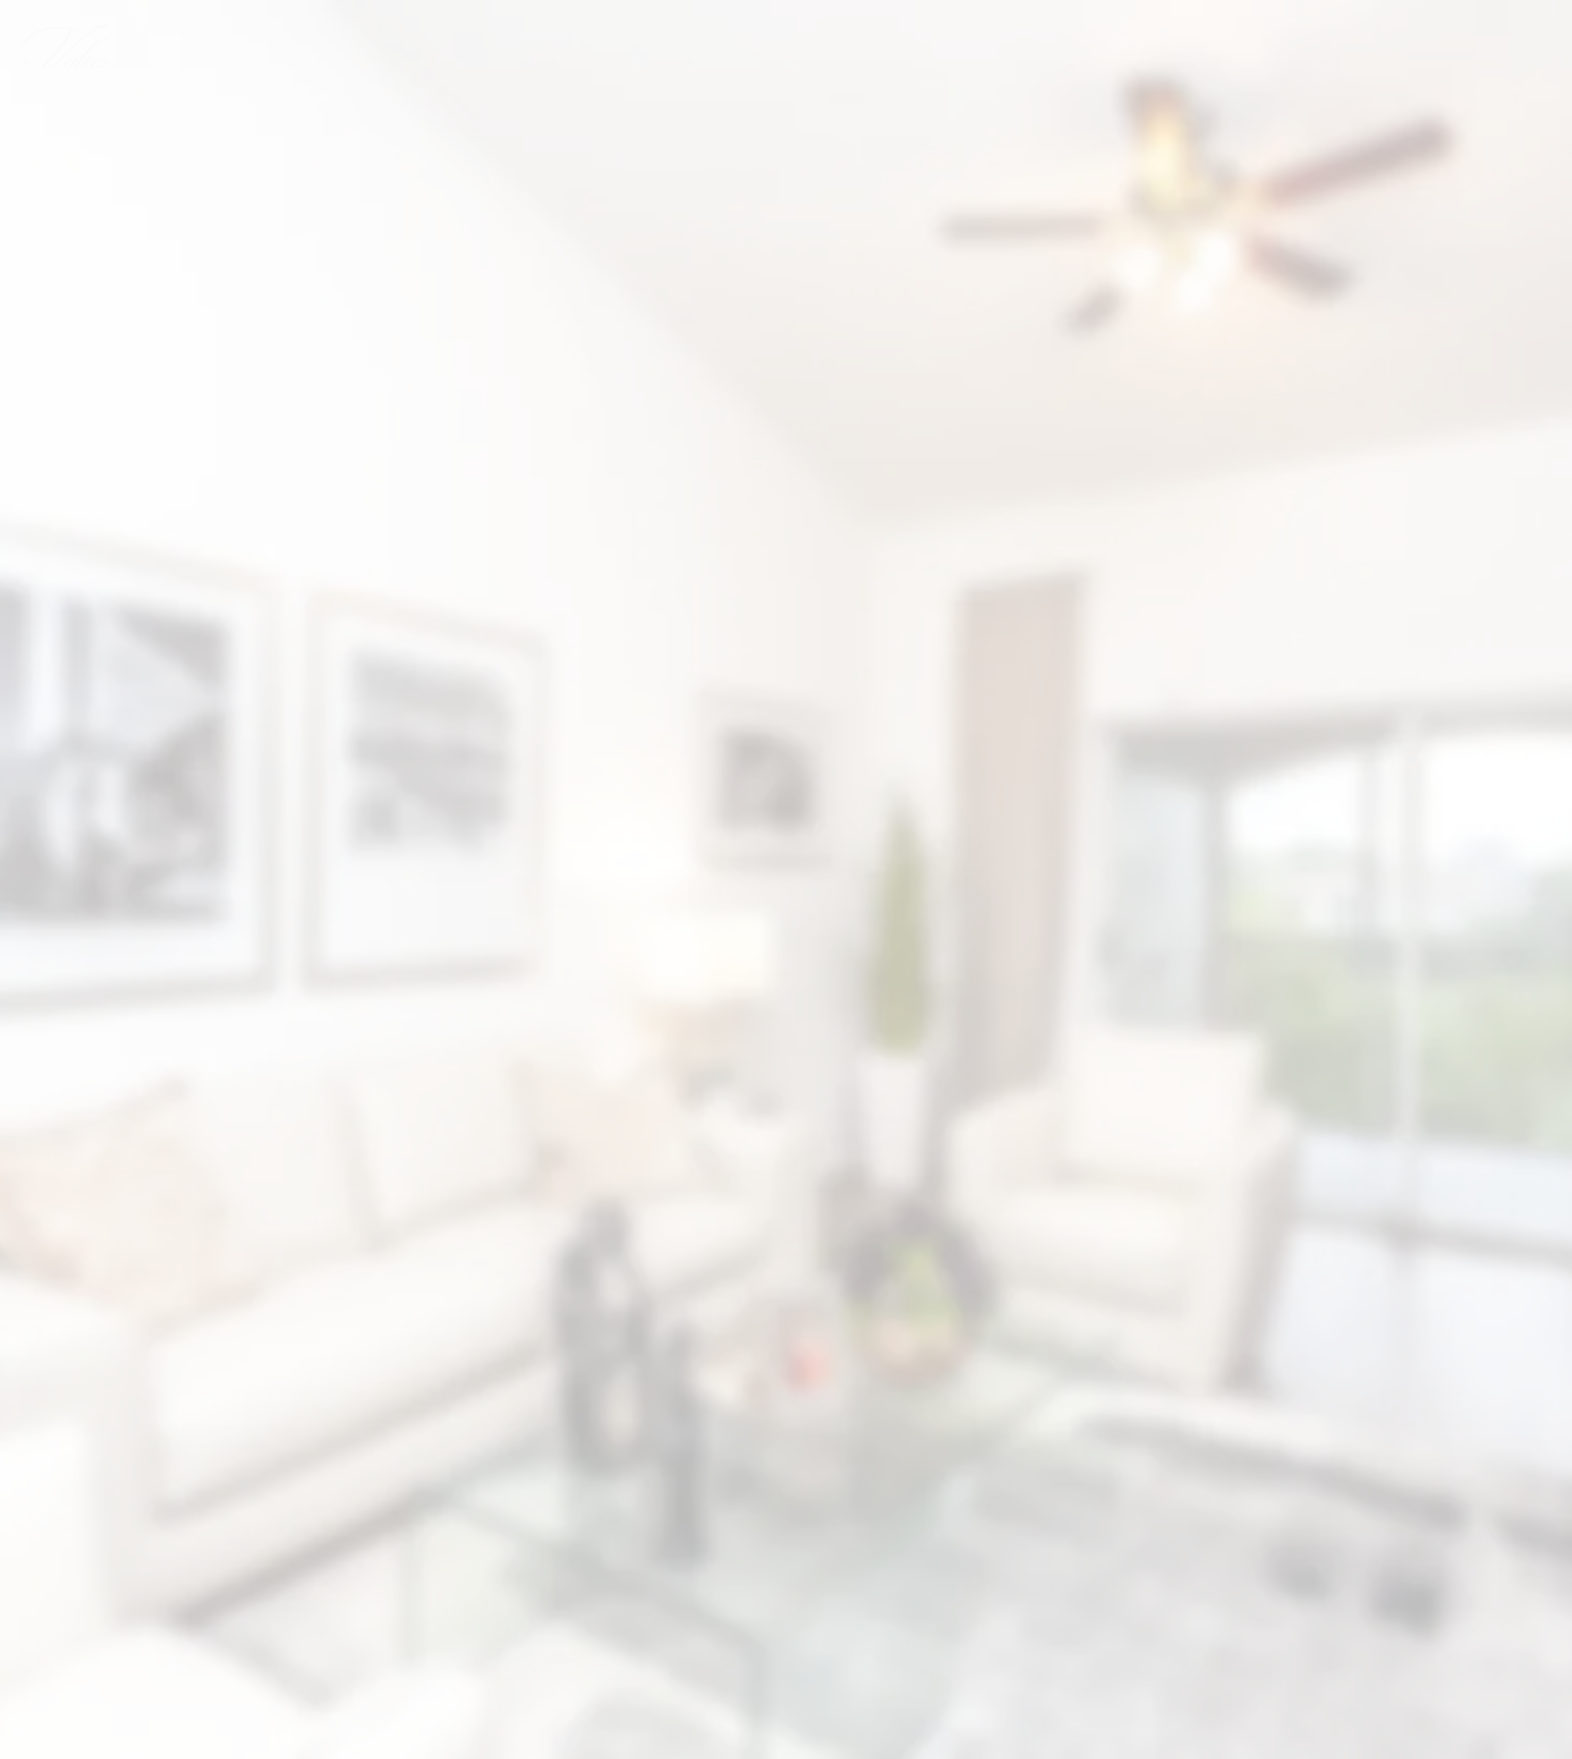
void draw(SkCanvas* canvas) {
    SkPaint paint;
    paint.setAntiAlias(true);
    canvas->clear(0xFFFFFFFF);
    canvas->drawImageRect(SkImages::DeferredFromEncodedData(SkData::MakeFromFileName("img1.png")), SkRect::MakeXYWH(0, 0, 1572, 1759), SkSamplingOptions());
    canvas->drawImageRect(SkImages::DeferredFromEncodedData(SkData::MakeFromFileName("img2.png")), SkRect::MakeXYWH(23, 25, 85, 43), SkSamplingOptions());
}
